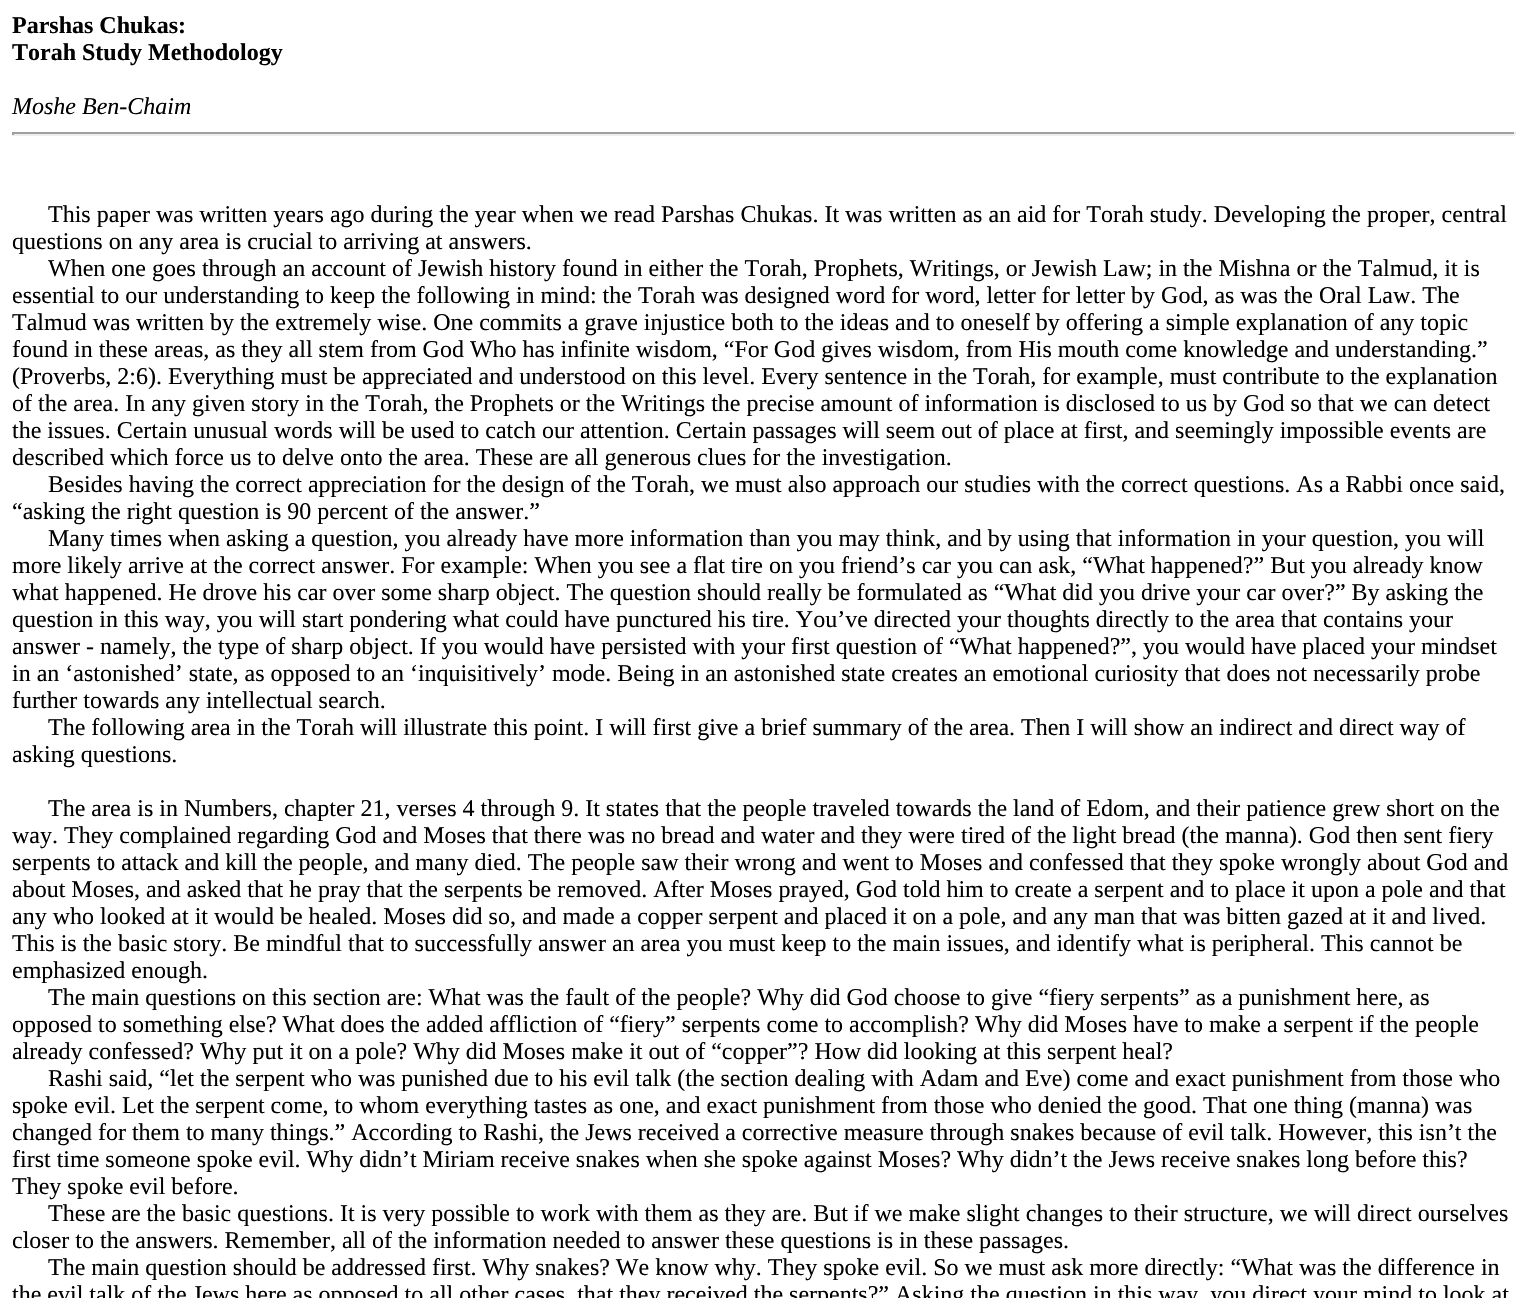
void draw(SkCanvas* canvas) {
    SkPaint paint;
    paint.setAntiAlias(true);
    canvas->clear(0xFFFFFFFF);
    SkFont font1(fontMgr->matchFamilyStyle("Liberation Serif", SkFontStyle::Bold()), 24);
    font1.setSubpixel(true);
    paint.setColor(0xFF000000);
    canvas->drawString("Parshas Chukas:", 12, 33, font1, paint);
    canvas->drawString("Torah Study Methodology", 12, 60, font1, paint);
    SkFont font2(fontMgr->matchFamilyStyle("Liberation Serif", SkFontStyle::Italic()), 24);
    font2.setSubpixel(true);
    canvas->drawString("Moshe Ben-Chaim", 12, 114, font2, paint);
    paint.setColor(0xFF9F9F9F);
    canvas->drawRect(SkRect::MakeXYWH(12, 132, 1503, 2), paint);
    paint.setColor(0xFFEEEEEE);
    canvas->drawRect(SkRect::MakeXYWH(1514, 132, 2, 3), paint);
    canvas->drawRect(SkRect::MakeXYWH(12, 134, 1503, 2), paint);
    paint.setColor(0xFF9F9F9F);
    canvas->drawRect(SkRect::MakeXYWH(12, 132, 2, 3), paint);
    SkFont font3(fontMgr->matchFamilyStyle("Liberation Serif", SkFontStyle::Normal()), 24);
    font3.setSubpixel(true);
    paint.setColor(0xFF000000);
    canvas->drawString("This paper was written years ago during the year when we read Parshas Chukas. It was written as an aid for Torah study. Developing the proper, central", 48, 222, font3, paint);
    canvas->drawString("questions on any area is crucial to arriving at answers.", 12, 249, font3, paint);
    canvas->drawString("When one goes through an account of Jewish history found in either the Torah, Prophets, Writings, or Jewish Law; in the Mishna or the Talmud, it is", 48, 276, font3, paint);
    canvas->drawString("essential to our understanding to keep the following in mind: the Torah was designed word for word, letter for letter by God, as was the Oral Law. The", 12, 303, font3, paint);
    canvas->drawString("Talmud was written by the extremely wise. One commits a grave injustice both to the ideas and to oneself by offering a simple explanation of any topic", 12, 330, font3, paint);
    canvas->drawString("found in these areas, as they all stem from God Who has infinite wisdom, “For God gives wisdom, from His mouth come knowledge and understanding.”", 12, 357, font3, paint);
    canvas->drawString("(Proverbs, 2:6). Everything must be appreciated and understood on this level. Every sentence in the Torah, for example, must contribute to the explanation", 12, 384, font3, paint);
    canvas->drawString("of the area. In any given story in the Torah, the Prophets or the Writings the precise amount of information is disclosed to us by God so that we can detect", 12, 411, font3, paint);
    canvas->drawString("the issues. Certain unusual words will be used to catch our attention. Certain passages will seem out of place at first, and seemingly impossible events are", 12, 438, font3, paint);
    canvas->drawString("described which force us to delve onto the area. These are all generous clues for the investigation.", 12, 465, font3, paint);
    canvas->drawString("Besides having the correct appreciation for the design of the Torah, we must also approach our studies with the correct questions. As a Rabbi once said,", 48, 492, font3, paint);
    canvas->drawString("“asking the right question is 90 percent of the answer.”", 12, 519, font3, paint);
    canvas->drawString("Many times when asking a question, you already have more information than you may think, and by using that information in your question, you will", 48, 546, font3, paint);
    canvas->drawString("more likely arrive at the correct answer. For example: When you see a flat tire on you friend’s car you can ask, “What happened?” But you already know", 12, 573, font3, paint);
    canvas->drawString("what happened. He drove his car over some sharp object. The question should really be formulated as “What did you drive your car over?” By asking the", 12, 600, font3, paint);
    canvas->drawString("question in this way, you will start pondering what could have punctured his tire. You’ve directed your thoughts directly to the area that contains your", 12, 627, font3, paint);
    canvas->drawString("answer - namely, the type of sharp object. If you would have persisted with your first question of “What happened?”, you would have placed your mindset", 12, 654, font3, paint);
    canvas->drawString("in an ‘astonished’ state, as opposed to an ‘inquisitively’ mode. Being in an astonished state creates an emotional curiosity that does not necessarily probe", 12, 681, font3, paint);
    canvas->drawString("further towards any intellectual search.", 12, 708, font3, paint);
    canvas->drawString("The following area in the Torah will illustrate this point. I will first give a brief summary of the area. Then I will show an indirect and direct way of", 48, 735, font3, paint);
    canvas->drawString("asking questions.", 12, 762, font3, paint);
    canvas->drawString("The area is in Numbers, chapter 21, verses 4 through 9. It states that the people traveled towards the land of Edom, and their patience grew short on the", 48, 816, font3, paint);
    canvas->drawString("way. They complained regarding God and Moses that there was no bread and water and they were tired of the light bread (the manna). God then sent fiery", 12, 843, font3, paint);
    canvas->drawString("serpents to attack and kill the people, and many died. The people saw their wrong and went to Moses and confessed that they spoke wrongly about God and", 12, 870, font3, paint);
    canvas->drawString("about Moses, and asked that he pray that the serpents be removed. After Moses prayed, God told him to create a serpent and to place it upon a pole and that", 12, 897, font3, paint);
    canvas->drawString("any who looked at it would be healed. Moses did so, and made a copper serpent and placed it on a pole, and any man that was bitten gazed at it and lived.", 12, 924, font3, paint);
    canvas->drawString("This is the basic story. Be mindful that to successfully answer an area you must keep to the main issues, and identify what is peripheral. This cannot be", 12, 951, font3, paint);
    canvas->drawString("emphasized enough.", 12, 978, font3, paint);
    canvas->drawString("The main questions on this section are: What was the fault of the people? Why did God choose to give “fiery serpents” as a punishment here, as", 48, 1005, font3, paint);
    canvas->drawString("opposed to something else? What does the added affliction of “fiery” serpents come to accomplish? Why did Moses have to make a serpent if the people", 12, 1032, font3, paint);
    canvas->drawString("already confessed? Why put it on a pole? Why did Moses make it out of “copper”? How did looking at this serpent heal?", 12, 1059, font3, paint);
    canvas->drawString("Rashi said, “let the serpent who was punished due to his evil talk (the section dealing with Adam and Eve) come and exact punishment from those who", 48, 1086, font3, paint);
    canvas->drawString("spoke evil. Let the serpent come, to whom everything tastes as one, and exact punishment from those who denied the good. That one thing (manna) was", 12, 1113, font3, paint);
    canvas->drawString("changed for them to many things.” According to Rashi, the Jews received a corrective measure through snakes because of evil talk. However, this isn’t the", 12, 1140, font3, paint);
    canvas->drawString("first time someone spoke evil. Why didn’t Miriam receive snakes when she spoke against Moses? Why didn’t the Jews receive snakes long before this?", 12, 1167, font3, paint);
    canvas->drawString("They spoke evil before.", 12, 1194, font3, paint);
    canvas->drawString("These are the basic questions. It is very possible to work with them as they are. But if we make slight changes to their structure, we will direct ourselves", 48, 1221, font3, paint);
    canvas->drawString("closer to the answers. Remember, all of the information needed to answer these questions is in these passages.", 12, 1248, font3, paint);
    canvas->drawString("The main question should be addressed first. Why snakes? We know why. They spoke evil. So we must ask more directly: “What was the difference in", 48, 1275, font3, paint);
    canvas->drawString("the evil talk of the Jews here as opposed to all other cases, that they received the serpents?” Asking the question in this way, you direct your mind to look at", 12, 1302, font3, paint);
}
